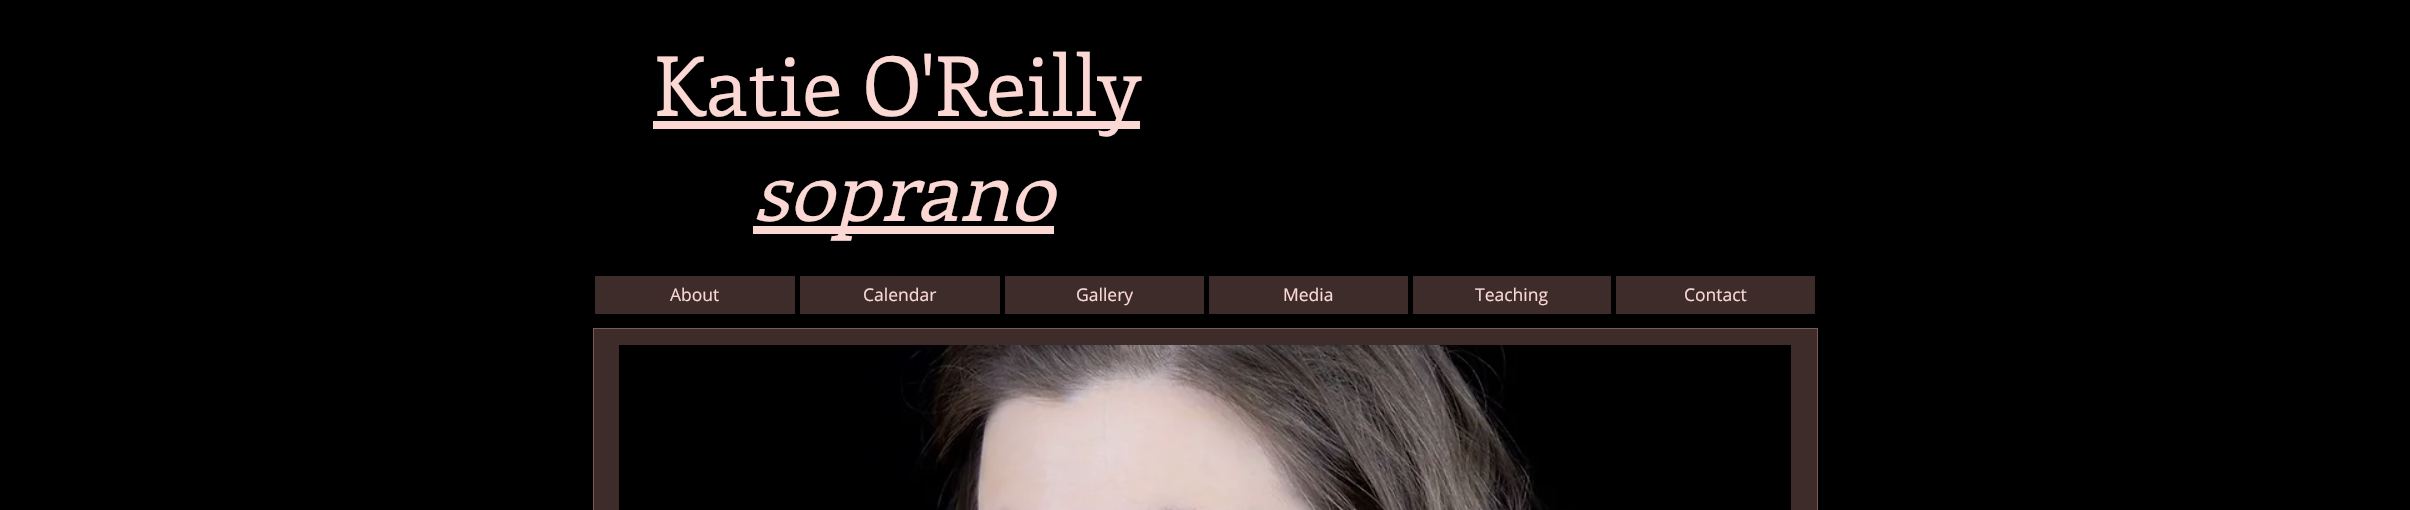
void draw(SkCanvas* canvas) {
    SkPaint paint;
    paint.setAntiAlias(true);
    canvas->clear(0xFF000000);
    paint.setColor(0xFFFBD8D4);
    canvas->drawRect(SkRect::MakeXYWH(653, 121, 487, 8), paint);
    SkFont font1(fontMgr->matchFamilyStyle("Enriqueta", SkFontStyle::Normal()), 82.5f);
    font1.setSubpixel(true);
    canvas->drawString("Katie O'Reilly", 653, 116, font1, paint);
    canvas->drawRect(SkRect::MakeXYWH(753, 226, 301, 8), paint);
    SkFont font2(fontMgr->matchFamilyStyle("Enriqueta", SkFontStyle::Italic()), 82.5f);
    font2.setSubpixel(true);
    canvas->drawString("soprano", 753, 221, font2, paint);
    paint.setColor(0xFF3D2C2A);
    canvas->drawRect(SkRect::MakeXYWH(595, 276, 200, 38), paint);
    SkFont font3(fontMgr->matchFamilyStyle("Open Sans", SkFontStyle::Normal()), 17.5f);
    font3.setSubpixel(true);
    paint.setColor(0xFFFBD8D4);
    canvas->drawString("About", 670, 301, font3, paint);
    paint.setColor(0xFF3D2C2A);
    canvas->drawRect(SkRect::MakeXYWH(800, 276, 200, 38), paint);
    paint.setColor(0xFFFBD8D4);
    canvas->drawString("Calendar", 863, 301, font3, paint);
    paint.setColor(0xFF3D2C2A);
    canvas->drawRect(SkRect::MakeXYWH(1005, 276, 199, 38), paint);
    paint.setColor(0xFFFBD8D4);
    canvas->drawString("Gallery", 1076, 301, font3, paint);
    paint.setColor(0xFF3D2C2A);
    canvas->drawRect(SkRect::MakeXYWH(1209, 276, 199, 38), paint);
    paint.setColor(0xFFFBD8D4);
    canvas->drawString("Media", 1283, 301, font3, paint);
    paint.setColor(0xFF3D2C2A);
    canvas->drawRect(SkRect::MakeXYWH(1413, 276, 198, 38), paint);
    paint.setColor(0xFFFBD8D4);
    canvas->drawString("Teaching", 1475, 301, font3, paint);
    paint.setColor(0xFF3D2C2A);
    canvas->drawRect(SkRect::MakeXYWH(1616, 276, 199, 38), paint);
    paint.setColor(0xFFFBD8D4);
    canvas->drawString("Contact", 1684, 301, font3, paint);
    paint.setColor(0xFF3D2C2A);
    canvas->drawRect(SkRect::MakeXYWH(593.5f, 328.5f, 1224, 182), paint);
    paint.setStyle(SkPaint::kStroke_Style);
    paint.setStrokeWidth(1);
    paint.setColor(0xFF7B5955);
    canvas->drawRect(SkRect::MakeXYWH(593.5f, 328.5f, 1224, 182), paint);
    canvas->drawImageRect(SkImages::DeferredFromEncodedData(SkData::MakeFromFileName("img1.png")), SkRect::MakeXYWH(619, 345, 1172, 165), SkSamplingOptions());
}
